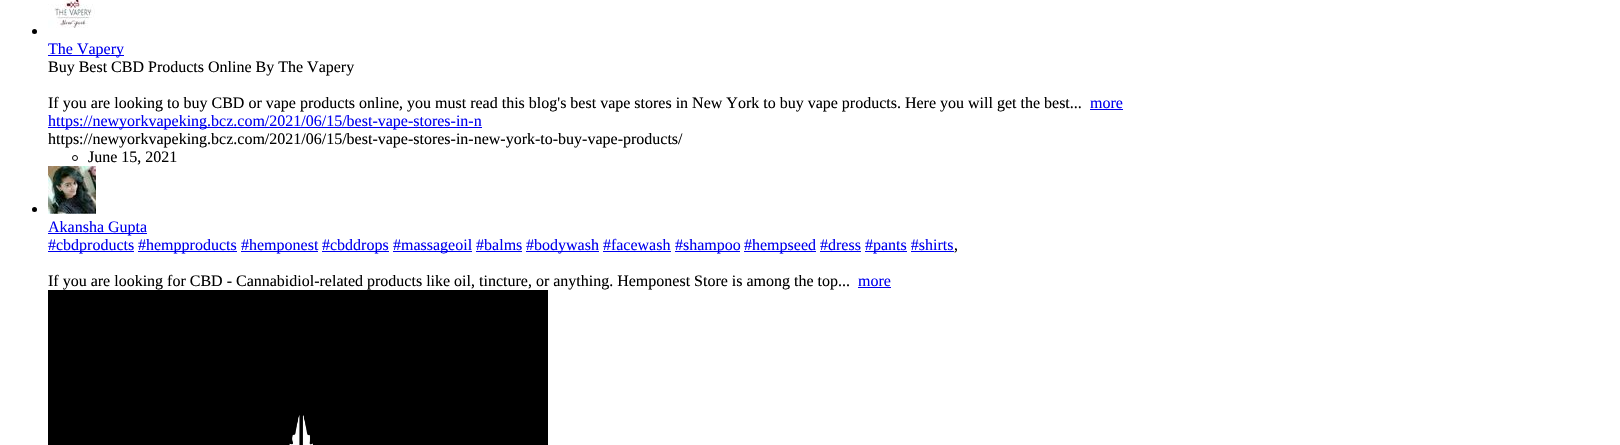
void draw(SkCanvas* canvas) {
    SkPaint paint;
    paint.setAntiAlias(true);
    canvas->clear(0xFFFFFFFF);
    canvas->drawImageRect(SkImages::DeferredFromEncodedData(SkData::MakeFromFileName("img1.png")), SkRect::MakeXYWH(48, 0, 47, 28), SkSamplingOptions());
    paint.setColor(0xFF000000);
    canvas->drawCircle(34.5f, 31.5f, 2.5f, paint);
    paint.setColor(0xFF0000EE);
    canvas->drawRect(SkRect::MakeXYWH(48, 55, 76, 1), paint);
    SkFont font1(fontMgr->matchFamilyStyle("Liberation Serif", SkFontStyle::Normal()), 16);
    font1.setSubpixel(true);
    canvas->drawString("The Vapery", 48, 54, font1, paint);
    paint.setColor(0xFF000000);
    canvas->drawString("Buy Best CBD Products Online By The Vapery", 48, 72, font1, paint);
    canvas->drawString("If you are looking to buy CBD or vape products online, you must read this blog's best vape stores in New York to buy vape products. Here you will get the best...", 48, 108, font1, paint);
    paint.setColor(0xFF0000EE);
    canvas->drawString("more", 1090, 108, font1, paint);
    canvas->drawRect(SkRect::MakeXYWH(1090, 109, 33, 1), paint);
    canvas->drawRect(SkRect::MakeXYWH(48, 127, 434, 1), paint);
    canvas->drawString("https://newyorkvapeking.bcz.com/2021/06/15/best-vape-stores-in-n", 48, 126, font1, paint);
    paint.setColor(0xFF000000);
    canvas->drawString("https://newyorkvapeking.bcz.com/2021/06/15/best-vape-stores-in-new-york-to-buy-vape-products/", 48, 144, font1, paint);
    paint.setStyle(SkPaint::kStroke_Style);
    paint.setStrokeWidth(1);
    canvas->drawCircle(75, 158, 2.5f, paint);
    paint.setStyle(SkPaint::kFill_Style);
    canvas->drawString("June 15, 2021", 88, 162, font1, paint);
    canvas->drawCircle(34.5f, 209.5f, 2.5f, paint);
    canvas->drawImageRect(SkImages::DeferredFromEncodedData(SkData::MakeFromFileName("img2.png")), SkRect::MakeXYWH(48, 166, 48, 48), SkSamplingOptions());
    paint.setColor(0xFF0000EE);
    canvas->drawRect(SkRect::MakeXYWH(48, 233, 99, 1), paint);
    canvas->drawString("Akansha Gupta", 48, 232, font1, paint);
    canvas->drawRect(SkRect::MakeXYWH(48, 251, 86, 1), paint);
    canvas->drawString("#cbdproducts", 48, 250, font1, paint);
    canvas->drawRect(SkRect::MakeXYWH(138, 251, 99, 1), paint);
    canvas->drawString("#hempproducts", 138, 250, font1, paint);
    canvas->drawRect(SkRect::MakeXYWH(241, 251, 77, 1), paint);
    canvas->drawString("#hemponest", 241, 250, font1, paint);
    canvas->drawRect(SkRect::MakeXYWH(322, 251, 67, 1), paint);
    canvas->drawString("#cbddrops", 322, 250, font1, paint);
    canvas->drawRect(SkRect::MakeXYWH(393, 251, 79, 1), paint);
    canvas->drawString("#massageoil #balms", 393, 250, font1, paint);
    canvas->drawRect(SkRect::MakeXYWH(476, 251, 46, 1), paint);
    canvas->drawRect(SkRect::MakeXYWH(526, 251, 73, 1), paint);
    canvas->drawString("#bodywash #facewash", 526, 250, font1, paint);
    canvas->drawRect(SkRect::MakeXYWH(603, 251, 68, 1), paint);
    canvas->drawRect(SkRect::MakeXYWH(675, 251, 65, 1), paint);
    canvas->drawString("#shampoo", 675, 250, font1, paint);
    canvas->drawRect(SkRect::MakeXYWH(744, 251, 72, 1), paint);
    canvas->drawString("#hempseed #dress", 744, 250, font1, paint);
    canvas->drawRect(SkRect::MakeXYWH(820, 251, 41, 1), paint);
    canvas->drawRect(SkRect::MakeXYWH(865, 251, 42, 1), paint);
    canvas->drawString("#pants #shirts", 865, 250, font1, paint);
    paint.setColor(0xFF000000);
    canvas->drawString(",", 954, 250, font1, paint);
    paint.setColor(0xFF0000EE);
    canvas->drawRect(SkRect::MakeXYWH(911, 251, 43, 1), paint);
    paint.setColor(0xFF000000);
    canvas->drawString("If you are looking for CBD - Cannabidiol-related products like oil, tincture, or anything. Hemponest Store is among the top...", 48, 286, font1, paint);
    paint.setColor(0xFF0000EE);
    canvas->drawString("more", 858, 286, font1, paint);
    canvas->drawRect(SkRect::MakeXYWH(858, 287, 33, 1), paint);
    canvas->drawImageRect(SkImages::DeferredFromEncodedData(SkData::MakeFromFileName("img3.png")), SkRect::MakeXYWH(48, 290, 500, 155), SkSamplingOptions());
}
